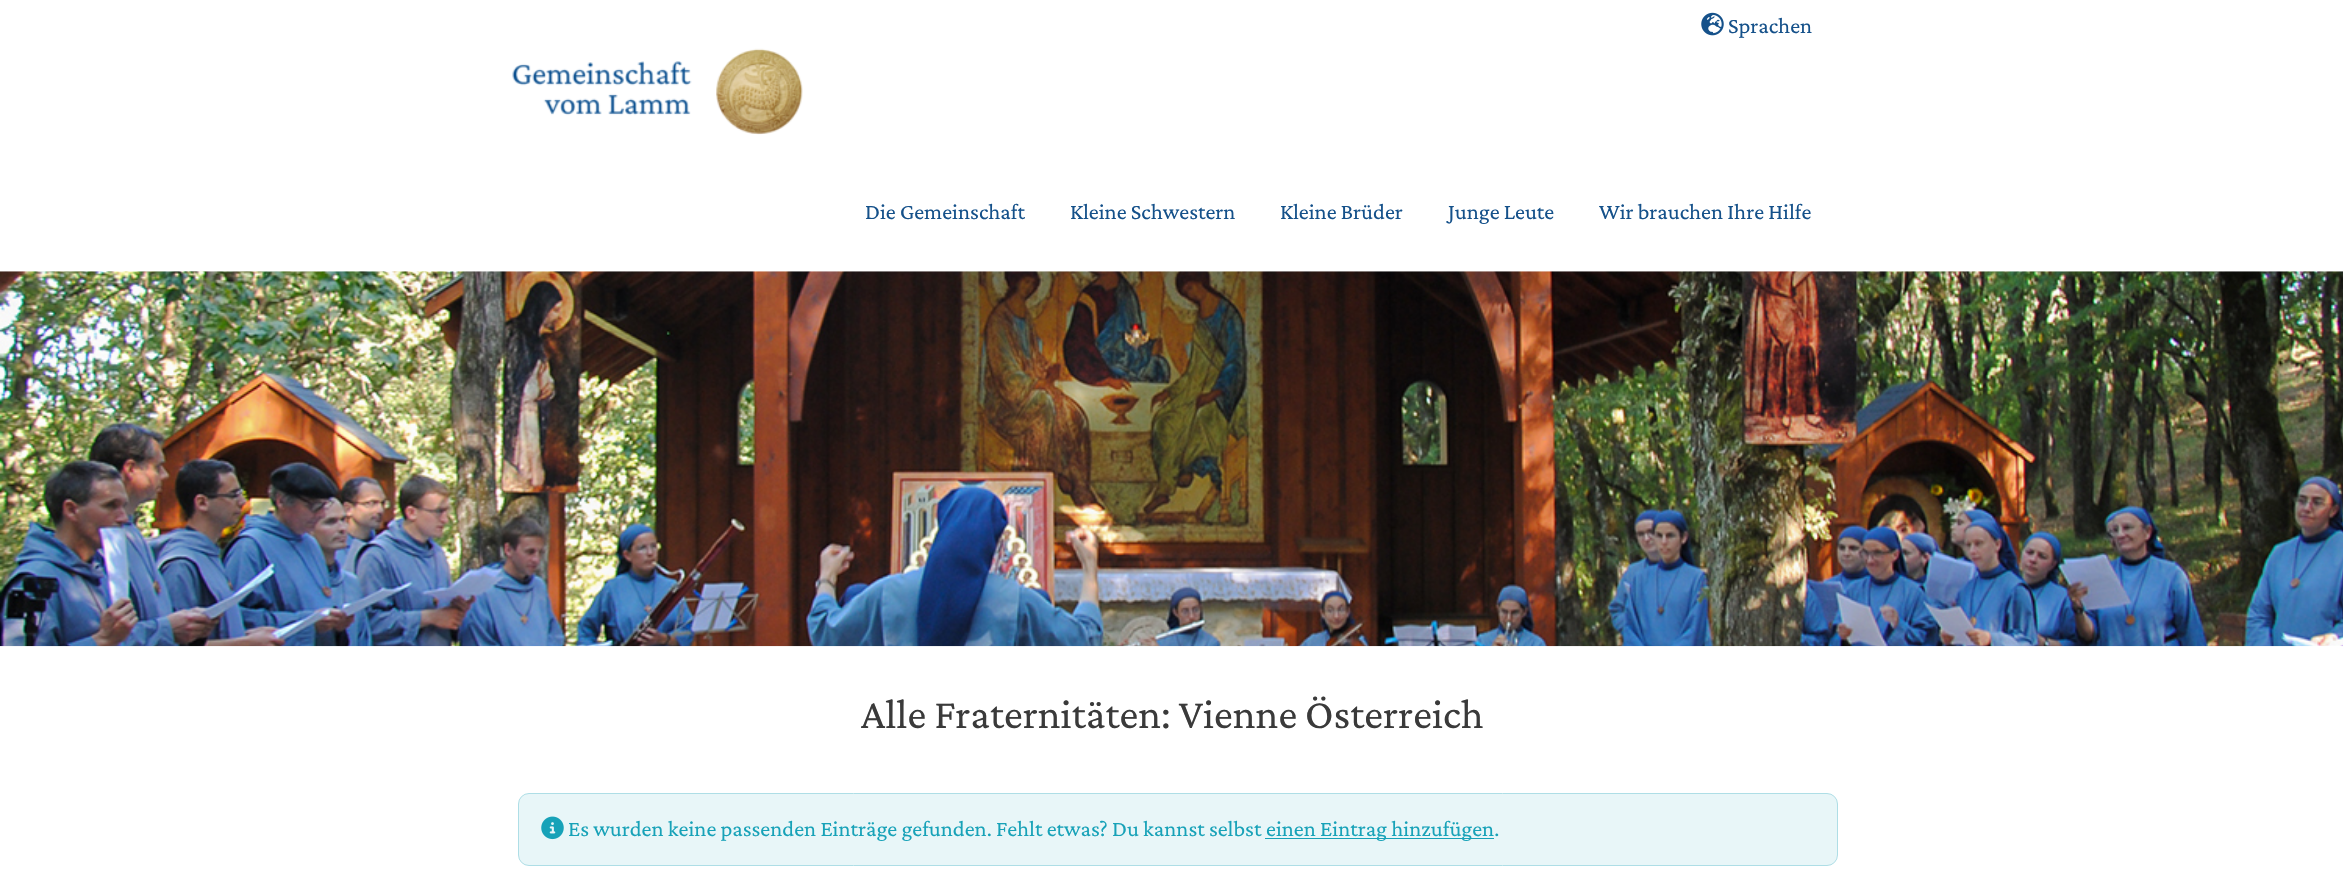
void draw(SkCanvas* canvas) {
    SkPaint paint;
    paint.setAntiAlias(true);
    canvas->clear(0xFFFFFFFF);
    canvas->drawImageRect(SkImages::DeferredFromEncodedData(SkData::MakeFromFileName("img1.png")), SkRect::MakeXYWH(1701, 12, 23, 24), SkSamplingOptions());
    SkFont font1(fontMgr->matchFamilyStyle("Crimson Pro", SkFontStyle::Normal()), 22.5f);
    font1.setSubpixel(true);
    paint.setColor(0xFF15518A);
    canvas->drawString("Sprachen", 1728, 33, font1, paint);
    canvas->drawImageRect(SkImages::DeferredFromEncodedData(SkData::MakeFromFileName("img2.png")), SkRect::MakeXYWH(512, 48, 291, 87), SkSamplingOptions());
    canvas->drawString("Die Gemeinschaft", 865, 219, font1, paint);
    canvas->drawString("Kleine Schwestern", 1070, 219, font1, paint);
    canvas->drawString("Kleine Brüder", 1280, 219, font1, paint);
    canvas->drawString("Junge Leute", 1448, 219, font1, paint);
    canvas->drawString("Wir brauchen Ihre Hilfe", 1599, 219, font1, paint);
    canvas->drawImageRect(SkImages::DeferredFromEncodedData(SkData::MakeFromFileName("img3.png")), SkRect::MakeXYWH(0, 271, 2343, 376), SkSamplingOptions());
    SkFont font2(fontMgr->matchFamilyStyle("Crimson Pro", SkFontStyle::Normal()), 42.5f);
    font2.setSubpixel(true);
    paint.setColor(0xFF3A3A3A);
    canvas->drawString("Alle Fraternitäten: Vienne Österreich", 861, 728, font2, paint);
    paint.setColor(0xFFE8F6F8);
    canvas->drawRoundRect(SkRect::MakeXYWH(518.5f, 793.5f, 1319, 72), 10.5f, 10.5f, paint);
    paint.setStyle(SkPaint::kStroke_Style);
    paint.setStrokeWidth(1);
    paint.setColor(0xFFAEDEE6);
    canvas->drawRoundRect(SkRect::MakeXYWH(518.5f, 793.5f, 1319, 72), 10.5f, 10.5f, paint);
    canvas->drawImageRect(SkImages::DeferredFromEncodedData(SkData::MakeFromFileName("img4.png")), SkRect::MakeXYWH(541, 816, 23, 24), SkSamplingOptions());
    paint.setStyle(SkPaint::kFill_Style);
    paint.setColor(0xFF17A2B8);
    canvas->drawString("Es wurden keine passenden Einträge gefunden. Fehlt etwas? Du kannst selbst", 568, 836, font1, paint);
    canvas->drawRect(SkRect::MakeXYWH(1265, 838, 229, 1), paint);
    canvas->drawString("einen Eintrag hinzufügen.", 1266, 836, font1, paint);
}
